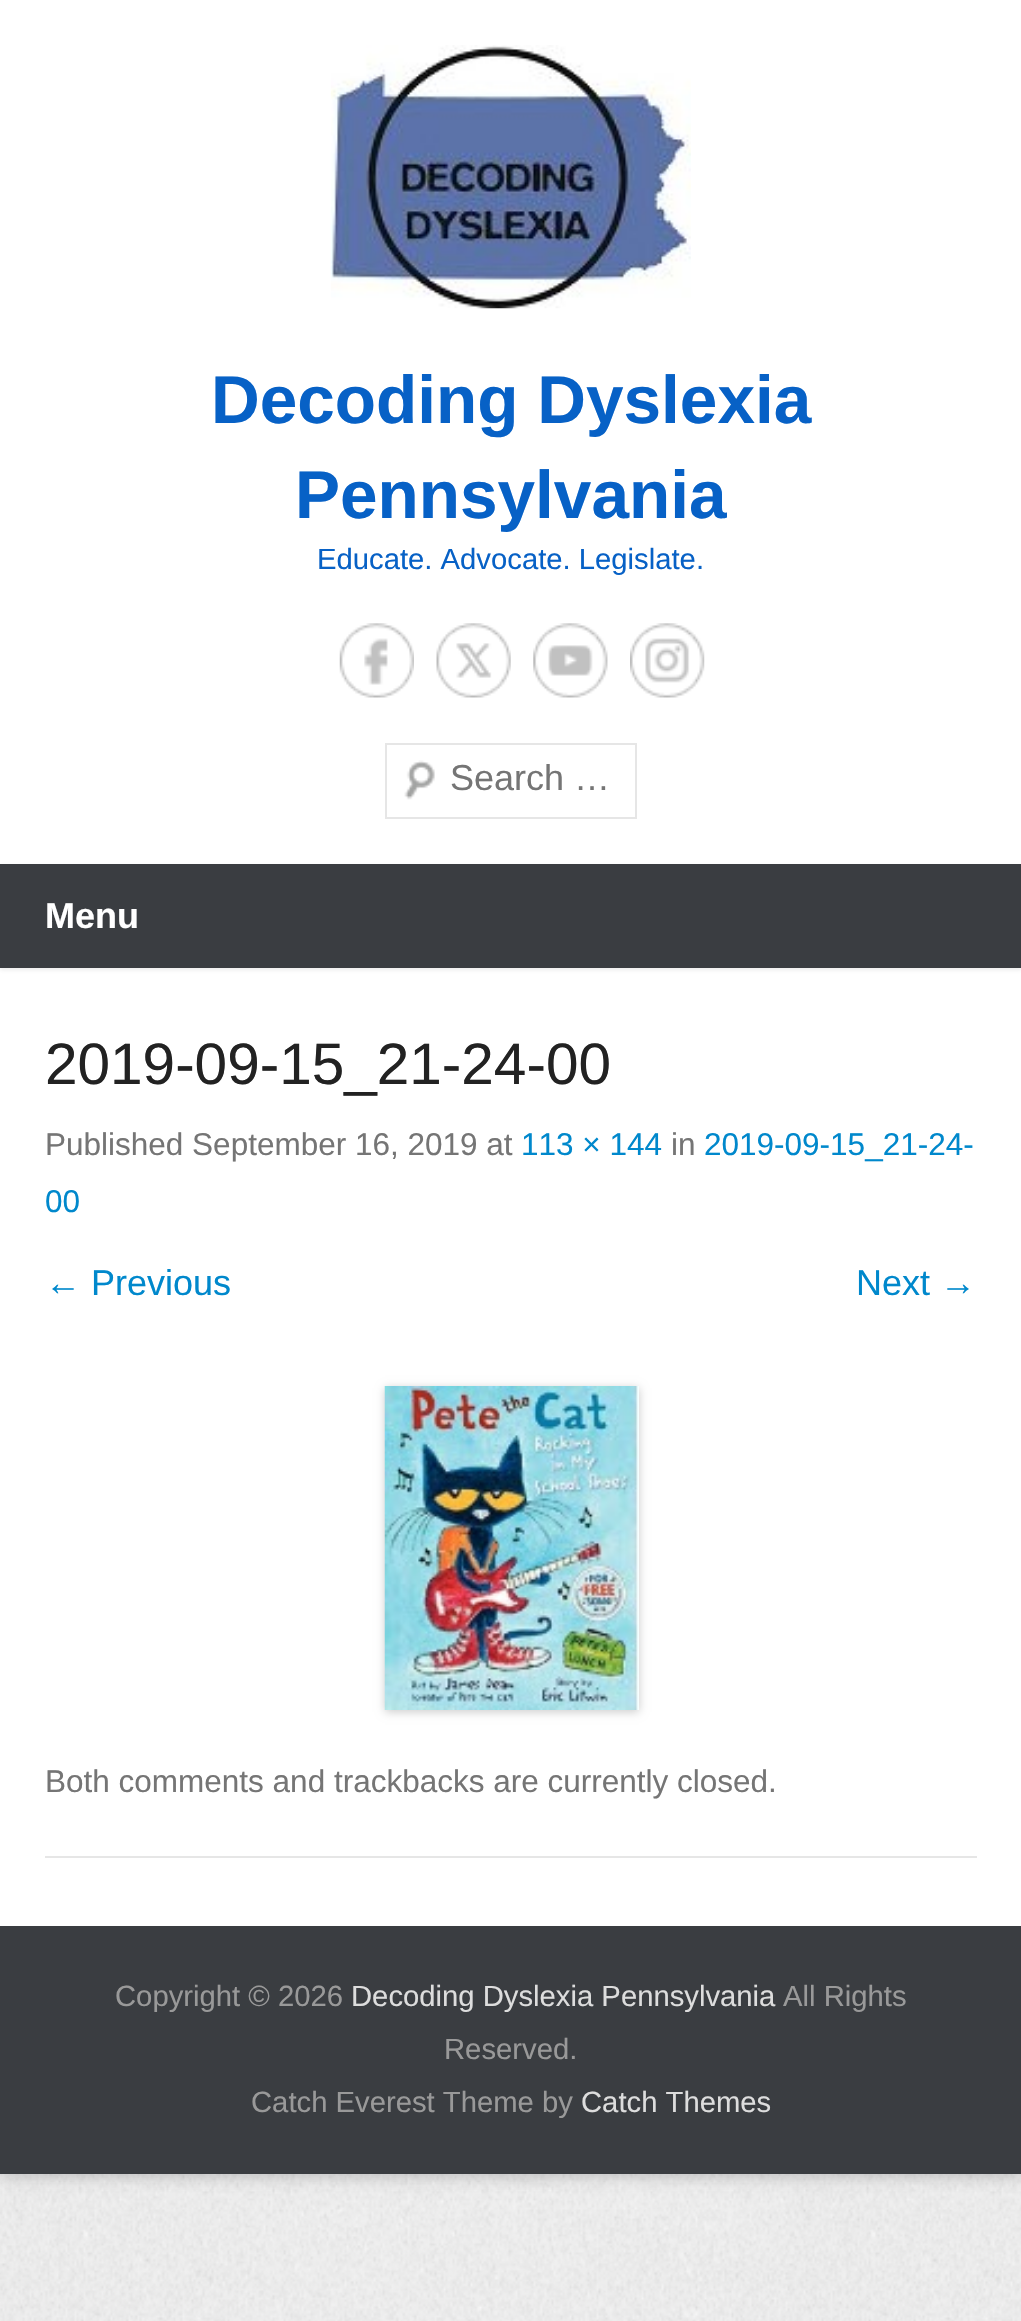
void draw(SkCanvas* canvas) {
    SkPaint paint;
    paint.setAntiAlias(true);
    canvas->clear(0xFFFFFFFF);
    canvas->drawImageRect(SkImages::DeferredFromEncodedData(SkData::MakeFromFileName("img1.png")), SkRect::MakeXYWH(0, 2174, 1021, 147), SkSamplingOptions());
    paint.setColor(0x4D646464);
    paint.setMaskFilter(SkMaskFilter::MakeBlur(kNormal_SkBlurStyle, 7));
    canvas->drawRect(SkRect::MakeXYWH(0, 5, 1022, 2173), paint);
    paint.setMaskFilter(nullptr);
    paint.setColor(0xFFFFFFFF);
    canvas->drawRect(SkRect::MakeXYWH(0, 0, 1021, 1926), paint);
    canvas->drawImageRect(SkImages::DeferredFromEncodedData(SkData::MakeFromFileName("img2.png")), SkRect::MakeXYWH(330, 45, 361, 264), SkSamplingOptions());
    SkFont font1(fontMgr->matchFamilyStyle("Liberation Sans", SkFontStyle::Bold()), 67.5f);
    font1.setSubpixel(true);
    paint.setColor(0xFF0761C6);
    canvas->drawString("Decoding Dyslexia", 211, 423, font1, paint);
    canvas->drawString("Pennsylvania", 295, 518, font1, paint);
    SkFont font2(fontMgr->matchFamilyStyle("Liberation Sans", SkFontStyle::Normal()), 29.25f);
    font2.setSubpixel(true);
    canvas->drawString("Educate. Advocate. Legislate.", 317, 569, font2, paint);
    canvas->drawImageRect(SkImages::DeferredFromEncodedData(SkData::MakeFromFileName("img3.png")), SkRect::MakeXYWH(339, 623, 75, 75), SkSamplingOptions());
    canvas->drawImageRect(SkImages::DeferredFromEncodedData(SkData::MakeFromFileName("img4.png")), SkRect::MakeXYWH(436, 623, 75, 75), SkSamplingOptions());
    canvas->drawImageRect(SkImages::DeferredFromEncodedData(SkData::MakeFromFileName("img5.png")), SkRect::MakeXYWH(533, 623, 75, 75), SkSamplingOptions());
    canvas->drawImageRect(SkImages::DeferredFromEncodedData(SkData::MakeFromFileName("img6.png")), SkRect::MakeXYWH(630, 623, 75, 75), SkSamplingOptions());
    canvas->drawImageRect(SkImages::DeferredFromEncodedData(SkData::MakeFromFileName("img7.png")), SkRect::MakeXYWH(404, 760, 31, 40), SkSamplingOptions());
    paint.setStyle(SkPaint::kStroke_Style);
    paint.setStrokeWidth(2);
    paint.setColor(0xFFE6E6E6);
    canvas->drawRect(SkRect::MakeXYWH(386, 744, 250, 74), paint);
    SkFont font3(fontMgr->matchFamilyStyle("Liberation Sans", SkFontStyle::Normal()), 36);
    font3.setSubpixel(true);
    paint.setStyle(SkPaint::kFill_Style);
    paint.setColor(0xFF757575);
    canvas->drawString("Search …", 450, 790, font3, paint);
    paint.setColor(0xFF3A3D41);
    canvas->drawRect(SkRect::MakeXYWH(0, 864, 1021, 104), paint);
    canvas->save();
    canvas->clipPath(SkPathBuilder(SkPathFillType::kEvenOdd).moveTo(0, 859).lineTo(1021, 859).lineTo(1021, 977).lineTo(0, 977).close().moveTo(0, 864).lineTo(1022, 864).lineTo(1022, 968).lineTo(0, 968).close().detach(), true);
    paint.setColor(0x1A404040);
    paint.setMaskFilter(SkMaskFilter::MakeBlur(kNormal_SkBlurStyle, 2));
    canvas->drawRect(SkRect::MakeXYWH(0, 866, 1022, 104), paint);
    paint.setMaskFilter(nullptr);
    canvas->restore();
    SkFont font4(fontMgr->matchFamilyStyle("Liberation Sans", SkFontStyle::Bold()), 36);
    font4.setSubpixel(true);
    paint.setColor(0xFFFFFFFF);
    canvas->drawString("Menu", 45, 928, font4, paint);
    paint.setColor(0xFFE6E6E6);
    canvas->drawRect(SkRect::MakeXYWH(45, 1856, 932, 2), paint);
    SkFont font5(fontMgr->matchFamilyStyle("Liberation Sans", SkFontStyle::Normal()), 58.5f);
    font5.setSubpixel(true);
    paint.setColor(0xFF222222);
    canvas->drawString("2019-09-15_21-24-00", 45, 1084, font5, paint);
    SkFont font6(fontMgr->matchFamilyStyle("Liberation Sans", SkFontStyle::Normal()), 31.5f);
    font6.setSubpixel(true);
    paint.setColor(0xFF757575);
    canvas->drawString("Published September 16, 2019 at", 45, 1155, font6, paint);
    paint.setColor(0xFF0088CC);
    canvas->drawString("113 × 144", 521, 1155, font6, paint);
    paint.setColor(0xFF757575);
    canvas->drawString("in", 671, 1155, font6, paint);
    paint.setColor(0xFF0088CC);
    canvas->drawString("2019-09-15_21-24-", 704, 1155, font6, paint);
    canvas->drawString("00", 45, 1212, font6, paint);
    canvas->drawString("← Previous", 45, 1295, font3, paint);
    canvas->drawString("Next →", 856, 1295, font3, paint);
    paint.setColor(0x33000000);
    paint.setMaskFilter(SkMaskFilter::MakeBlur(kNormal_SkBlurStyle, 4.5f));
    canvas->drawRect(SkRect::MakeXYWH(385, 1388, 254, 324), paint);
    paint.setMaskFilter(nullptr);
    canvas->drawImageRect(SkImages::DeferredFromEncodedData(SkData::MakeFromFileName("img8.png")), SkRect::MakeXYWH(384, 1386, 255, 324), SkSamplingOptions());
    paint.setColor(0xFF757575);
    canvas->drawString("Both comments and trackbacks are currently closed.", 45, 1792, font6, paint);
    paint.setColor(0xFF3A3D41);
    canvas->drawRect(SkRect::MakeXYWH(0, 1926, 1021, 248), paint);
    paint.setColor(0xFF999999);
    canvas->drawString("Copyright © 2026", 115, 2006, font2, paint);
    paint.setColor(0xFFDDDDDD);
    canvas->drawString("Decoding Dyslexia Pennsylvania", 351, 2006, font2, paint);
    paint.setColor(0xFF999999);
    canvas->drawString("All Rights", 783, 2006, font2, paint);
    canvas->drawString("Reserved.", 444, 2059, font2, paint);
    canvas->drawString("Catch Everest Theme by", 251, 2112, font2, paint);
    paint.setColor(0xFFDDDDDD);
    canvas->drawString("Catch Themes", 581, 2112, font2, paint);
}
